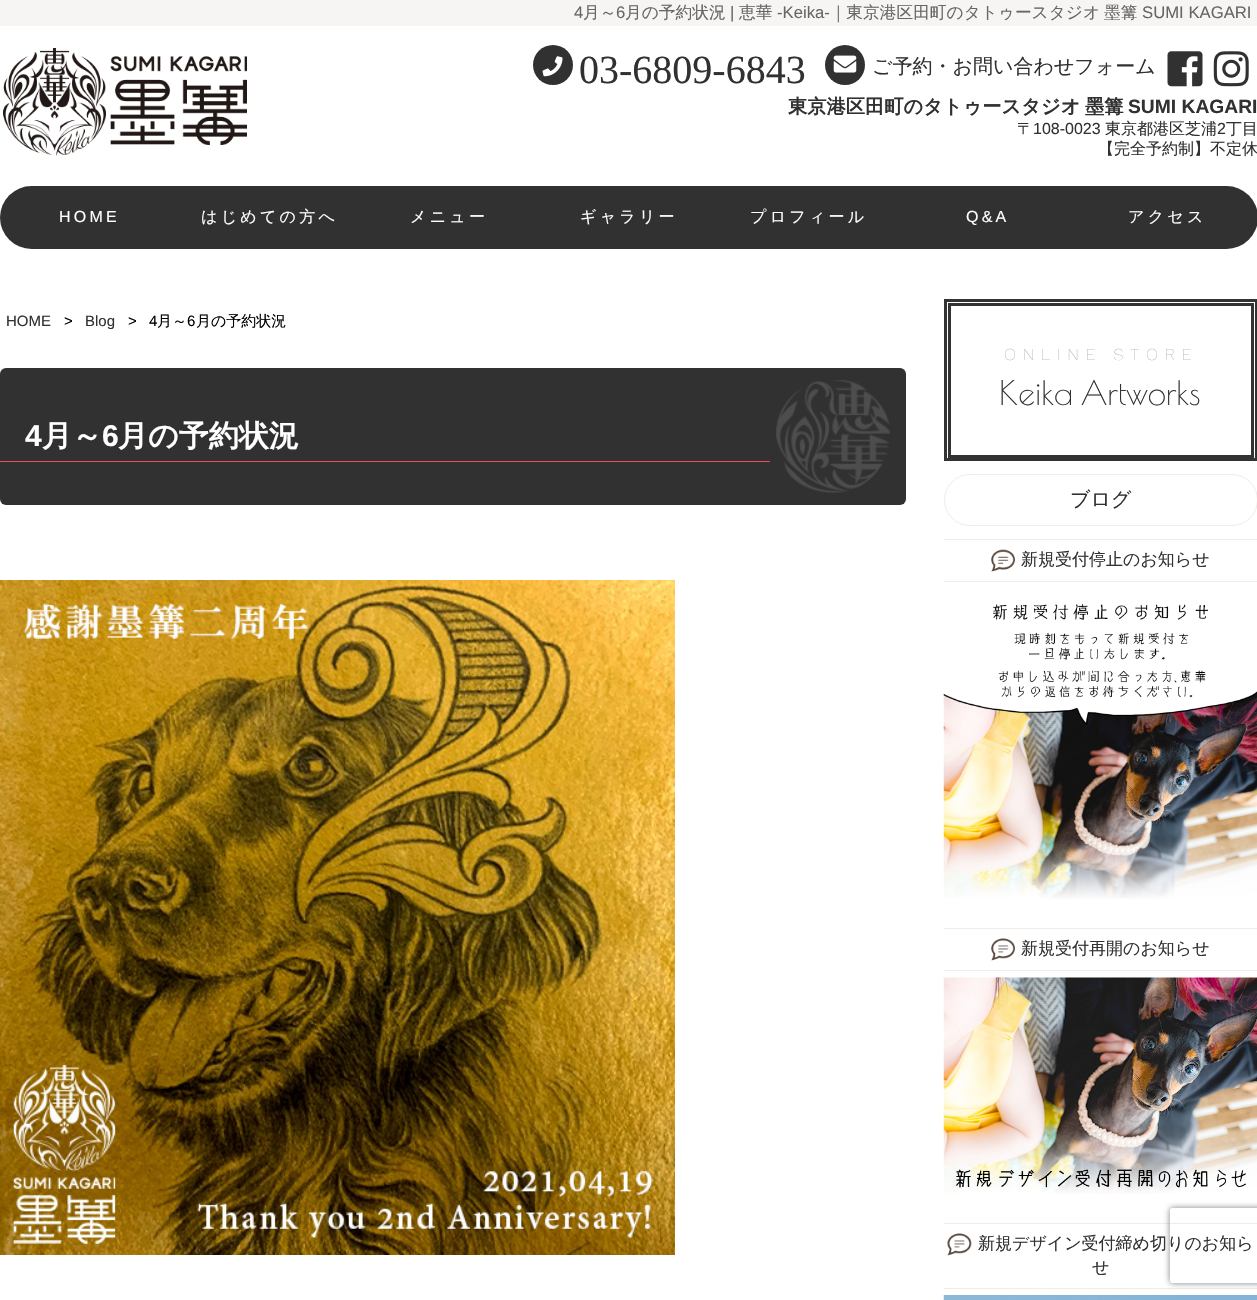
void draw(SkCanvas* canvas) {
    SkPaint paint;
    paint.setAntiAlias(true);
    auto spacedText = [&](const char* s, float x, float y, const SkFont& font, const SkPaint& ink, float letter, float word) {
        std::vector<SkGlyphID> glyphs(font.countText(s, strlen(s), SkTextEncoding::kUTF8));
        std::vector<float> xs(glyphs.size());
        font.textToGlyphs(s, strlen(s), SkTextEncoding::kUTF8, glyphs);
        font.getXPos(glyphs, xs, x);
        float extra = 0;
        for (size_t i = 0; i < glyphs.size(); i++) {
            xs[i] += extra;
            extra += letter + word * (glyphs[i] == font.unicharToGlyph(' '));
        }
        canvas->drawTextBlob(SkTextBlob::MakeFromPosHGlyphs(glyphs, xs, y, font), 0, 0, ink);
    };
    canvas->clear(0xFFFFFFFF);
    paint.setColor(0xFFF7F5F3);
    canvas->drawRect(SkRect::MakeXYWH(0, 0, 1257, 26), paint);
    SkFont font1(fontMgr->matchFamilyStyle("Liberation Sans", SkFontStyle::Normal()), 16.7f);
    font1.setSubpixel(true);
    paint.setColor(0xFF666666);
    canvas->drawString("4", 574, 18, font1, paint);
    SkFont font2(fontMgr->matchFamilyStyle("WenQuanYi Zen Hei", SkFontStyle(500, SkFontStyle::kNormal_Width, SkFontStyle::kUpright_Slant)), 16.7f);
    font2.setSubpixel(true);
    canvas->drawString("月～", 583, 18, font2, paint);
    canvas->drawString("6", 616, 18, font1, paint);
    canvas->drawString("月の予約状況", 625, 18, font2, paint);
    canvas->drawString("|", 730, 18, font1, paint);
    canvas->drawString("恵華", 739, 18, font2, paint);
    canvas->drawString("-Keika-", 777, 18, font1, paint);
    canvas->drawString("｜東京港区田町のタトゥースタジオ", 830, 18, font2, paint);
    canvas->drawString("墨篝", 1104, 18, font2, paint);
    canvas->drawString("SUMI KAGARI", 1142, 18, font1, paint);
    canvas->drawImageRect(SkImages::DeferredFromEncodedData(SkData::MakeFromFileName("img1.png")), SkRect::MakeXYWH(3, 48, 244, 108), SkSamplingOptions());
    paint.setColor(0xFF313131);
    canvas->drawCircle(553, 65, 20, paint);
    canvas->drawImageRect(SkImages::DeferredFromEncodedData(SkData::MakeFromFileName("img2.png")), SkRect::MakeXYWH(542, 56, 21, 21), SkSamplingOptions());
    SkFont font3(fontMgr->matchFamilyStyle("Liberation Serif", SkFontStyle::Normal()), 40);
    font3.setSubpixel(true);
    canvas->drawString("03-6809-6843", 579, 83, font3, paint);
    canvas->drawCircle(845, 65, 20, paint);
    canvas->drawImageRect(SkImages::DeferredFromEncodedData(SkData::MakeFromFileName("img3.png")), SkRect::MakeXYWH(833, 55, 24, 18), SkSamplingOptions());
    SkFont font4(fontMgr->matchFamilyStyle("WenQuanYi Zen Hei", SkFontStyle(500, SkFontStyle::kNormal_Width, SkFontStyle::kUpright_Slant)), 20);
    font4.setSubpixel(true);
    canvas->drawString("ご予約・お問い合わせフォーム", 872, 73, font4, paint);
    canvas->drawImageRect(SkImages::DeferredFromEncodedData(SkData::MakeFromFileName("img4.png")), SkRect::MakeXYWH(1167, 51, 36, 36), SkSamplingOptions());
    canvas->drawImageRect(SkImages::DeferredFromEncodedData(SkData::MakeFromFileName("img5.png")), SkRect::MakeXYWH(1213, 51, 36, 36), SkSamplingOptions());
    SkFont font5(fontMgr->matchFamilyStyle("WenQuanYi Zen Hei", SkFontStyle::Bold()), 19.25f);
    font5.setSubpixel(true);
    canvas->drawString("東京港区田町のタトゥースタジオ", 788, 113, font5, paint);
    canvas->drawString("墨篝", 1085, 113, font5, paint);
    SkFont font6(fontMgr->matchFamilyStyle("Liberation Sans", SkFontStyle::Bold()), 19.25f);
    font6.setSubpixel(true);
    canvas->drawString("SUMI KAGARI", 1128, 113, font6, paint);
    SkFont font7(fontMgr->matchFamilyStyle("WenQuanYi Zen Hei", SkFontStyle(500, SkFontStyle::kNormal_Width, SkFontStyle::kUpright_Slant)), 16);
    font7.setSubpixel(true);
    canvas->drawString("〒", 1017, 134, font7, paint);
    SkFont font8(fontMgr->matchFamilyStyle("Liberation Sans", SkFontStyle::Normal()), 16);
    font8.setSubpixel(true);
    canvas->drawString("108-0023", 1033, 134, font8, paint);
    canvas->drawString("東京都港区芝浦", 1105, 134, font7, paint);
    canvas->drawString("2", 1217, 134, font8, paint);
    canvas->drawString("丁目", 1226, 134, font7, paint);
    canvas->drawString("【完全予約制】不定休", 1098, 154, font7, paint);
    canvas->drawRoundRect(SkRect::MakeXYWH(0, 186, 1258, 63), 31.5f, 31.5f, paint);
    paint.setColor(0xFFFFFFFF);
    spacedText("HOME", 59, 222, font8, paint, 3.25f, 0);
    spacedText("はじめての方へ", 201, 222, font7, paint, 3.25f, 0);
    spacedText("メニュー", 410, 222, font7, paint, 3.25f, 0);
    spacedText("ギャラリー", 580, 222, font7, paint, 3.25f, 0);
    spacedText("プロフィール", 750, 222, font7, paint, 3.25f, 0);
    spacedText("Q&A", 966, 222, font8, paint, 3.25f, 0);
    spacedText("アクセス", 1128, 222, font7, paint, 3.25f, 0);
    SkFont font9(fontMgr->matchFamilyStyle("Liberation Sans", SkFontStyle::Normal()), 15);
    font9.setSubpixel(true);
    paint.setColor(0xFF313131);
    canvas->drawString("HOME", 6, 326, font9, paint);
    paint.setColor(0xFF000000);
    canvas->drawString(">", 64, 326, font9, paint);
    paint.setColor(0xFF313131);
    canvas->drawString("Blog", 85, 326, font9, paint);
    paint.setColor(0xFF000000);
    canvas->drawString(">", 128, 326, font9, paint);
    canvas->drawString("4", 149, 326, font9, paint);
    SkFont font10(fontMgr->matchFamilyStyle("WenQuanYi Zen Hei", SkFontStyle(500, SkFontStyle::kNormal_Width, SkFontStyle::kUpright_Slant)), 15);
    font10.setSubpixel(true);
    canvas->drawString("月～", 157, 326, font10, paint);
    canvas->drawString("6", 187, 326, font9, paint);
    canvas->drawString("月の予約状況", 196, 326, font10, paint);
    paint.setColor(0xFF313131);
    canvas->drawRoundRect(SkRect::MakeXYWH(0, 368, 906, 137), 6, 6, paint);
    canvas->drawImageRect(SkImages::DeferredFromEncodedData(SkData::MakeFromFileName("img6.png")), SkRect::MakeXYWH(776, 380, 114, 113), SkSamplingOptions());
    SkFont font11(fontMgr->matchFamilyStyle("Liberation Sans", SkFontStyle::Bold()), 30);
    font11.setSubpixel(true);
    paint.setColor(0xFFFFFFFF);
    canvas->drawString("4", 25, 446, font11, paint);
    SkFont font12(fontMgr->matchFamilyStyle("WenQuanYi Zen Hei", SkFontStyle::Bold()), 30);
    font12.setSubpixel(true);
    canvas->drawString("月～", 42, 446, font12, paint);
    canvas->drawString("6", 102, 446, font11, paint);
    canvas->drawString("月の予約状況", 118, 446, font12, paint);
    paint.setColor(0xFFE84F56);
    canvas->drawRect(SkRect::MakeXYWH(0, 461, 770, 1), paint);
    canvas->drawImageRect(SkImages::DeferredFromEncodedData(SkData::MakeFromFileName("img7.png")), SkRect::MakeXYWH(0, 580, 675, 675), SkSamplingOptions());
    paint.setStyle(SkPaint::kStroke_Style);
    paint.setStrokeWidth(3);
    paint.setColor(0xFF333333);
    canvas->drawRect(SkRect::MakeXYWH(945.5f, 300.5f, 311, 159), paint);
    canvas->drawRect(SkRect::MakeXYWH(949.5f, 304.5f, 303, 152), paint);
    SkFont font13(fontMgr->matchFamilyStyle("Work Sans", SkFontStyle(100, SkFontStyle::kNormal_Width, SkFontStyle::kUpright_Slant)), 16.7f);
    font13.setSubpixel(true);
    paint.setStyle(SkPaint::kFill_Style);
    paint.setColor(0xFF999999);
    spacedText("ONLINE STORE", 1004, 360, font13, paint, 6.75f, 0);
    SkFont font14(fontMgr->matchFamilyStyle("Poiret One", SkFontStyle::Normal()), 33.25f);
    font14.setSubpixel(true);
    paint.setColor(0xFF313131);
    canvas->drawString("Keika Artworks", 999, 405, font14, paint);
    paint.setStyle(SkPaint::kStroke_Style);
    paint.setStrokeWidth(1);
    paint.setColor(0xFFEFECE8);
    canvas->drawRoundRect(SkRect::MakeXYWH(944.5f, 474.5f, 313, 51), 25.5f, 25.5f, paint);
    paint.setStyle(SkPaint::kFill_Style);
    paint.setColor(0xFF313131);
    canvas->drawString("ブログ", 1070, 506, font4, paint);
    paint.setColor(0xFFEFECE8);
    canvas->drawRect(SkRect::MakeXYWH(944, 539, 313, 1), paint);
    canvas->drawRect(SkRect::MakeXYWH(944, 581, 313, 1), paint);
    canvas->drawImageRect(SkImages::DeferredFromEncodedData(SkData::MakeFromFileName("img8.png")), SkRect::MakeXYWH(991, 549, 24, 23), SkSamplingOptions());
    SkFont font15(fontMgr->matchFamilyStyle("WenQuanYi Zen Hei", SkFontStyle(500, SkFontStyle::kNormal_Width, SkFontStyle::kUpright_Slant)), 17);
    font15.setSubpixel(true);
    paint.setColor(0xFF313131);
    canvas->drawString("新規受付停止のお知らせ", 1021, 565, font15, paint);
    canvas->drawImageRect(SkImages::DeferredFromEncodedData(SkData::MakeFromFileName("img9.png")), SkRect::MakeXYWH(943, 604, 314, 295), SkSamplingOptions());
    paint.setColor(0xFFEFECE8);
    canvas->drawRect(SkRect::MakeXYWH(944, 928, 313, 1), paint);
    canvas->drawRect(SkRect::MakeXYWH(944, 970, 313, 1), paint);
    canvas->drawImageRect(SkImages::DeferredFromEncodedData(SkData::MakeFromFileName("img10.png")), SkRect::MakeXYWH(991, 938, 24, 23), SkSamplingOptions());
    paint.setColor(0xFF313131);
    canvas->drawString("新規受付再開のお知らせ", 1021, 954, font15, paint);
    canvas->drawImageRect(SkImages::DeferredFromEncodedData(SkData::MakeFromFileName("img11.png")), SkRect::MakeXYWH(943, 977, 314, 217), SkSamplingOptions());
    paint.setColor(0xFFEFECE8);
    canvas->drawRect(SkRect::MakeXYWH(944, 1223, 313, 1), paint);
    canvas->drawRect(SkRect::MakeXYWH(944, 1288, 313, 1), paint);
    canvas->drawImageRect(SkImages::DeferredFromEncodedData(SkData::MakeFromFileName("img12.png")), SkRect::MakeXYWH(947, 1233, 25, 23), SkSamplingOptions());
    paint.setColor(0xFF313131);
    canvas->drawString("新規デザイン受付締め切りのお知ら", 978, 1249, font15, paint);
    canvas->drawString("せ", 1092, 1273, font15, paint);
    canvas->drawImageRect(SkImages::DeferredFromEncodedData(SkData::MakeFromFileName("img13.png")), SkRect::MakeXYWH(943, 1295, 314, 5), SkSamplingOptions());
    canvas->save();
    canvas->clipPath(SkPathBuilder(SkPathFillType::kEvenOdd).moveTo(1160, 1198).lineTo(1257, 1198).lineTo(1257, 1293).lineTo(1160, 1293).close().moveTo(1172.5f, 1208).lineTo(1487.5f, 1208).cubicTo(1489, 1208, 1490, 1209, 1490, 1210.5f).lineTo(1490, 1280.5f).cubicTo(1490, 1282, 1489, 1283, 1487.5f, 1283).lineTo(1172.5f, 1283).cubicTo(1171, 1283, 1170, 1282, 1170, 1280.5f).lineTo(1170, 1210.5f).cubicTo(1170, 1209, 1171, 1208, 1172.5f, 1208).close().detach(), true);
    paint.setColor(0xFF808080);
    paint.setMaskFilter(SkMaskFilter::MakeBlur(kNormal_SkBlurStyle, 3));
    canvas->drawRoundRect(SkRect::MakeXYWH(1170, 1208, 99, 75), 2.5f, 2.5f, paint);
    paint.setMaskFilter(nullptr);
    canvas->restore();
}
